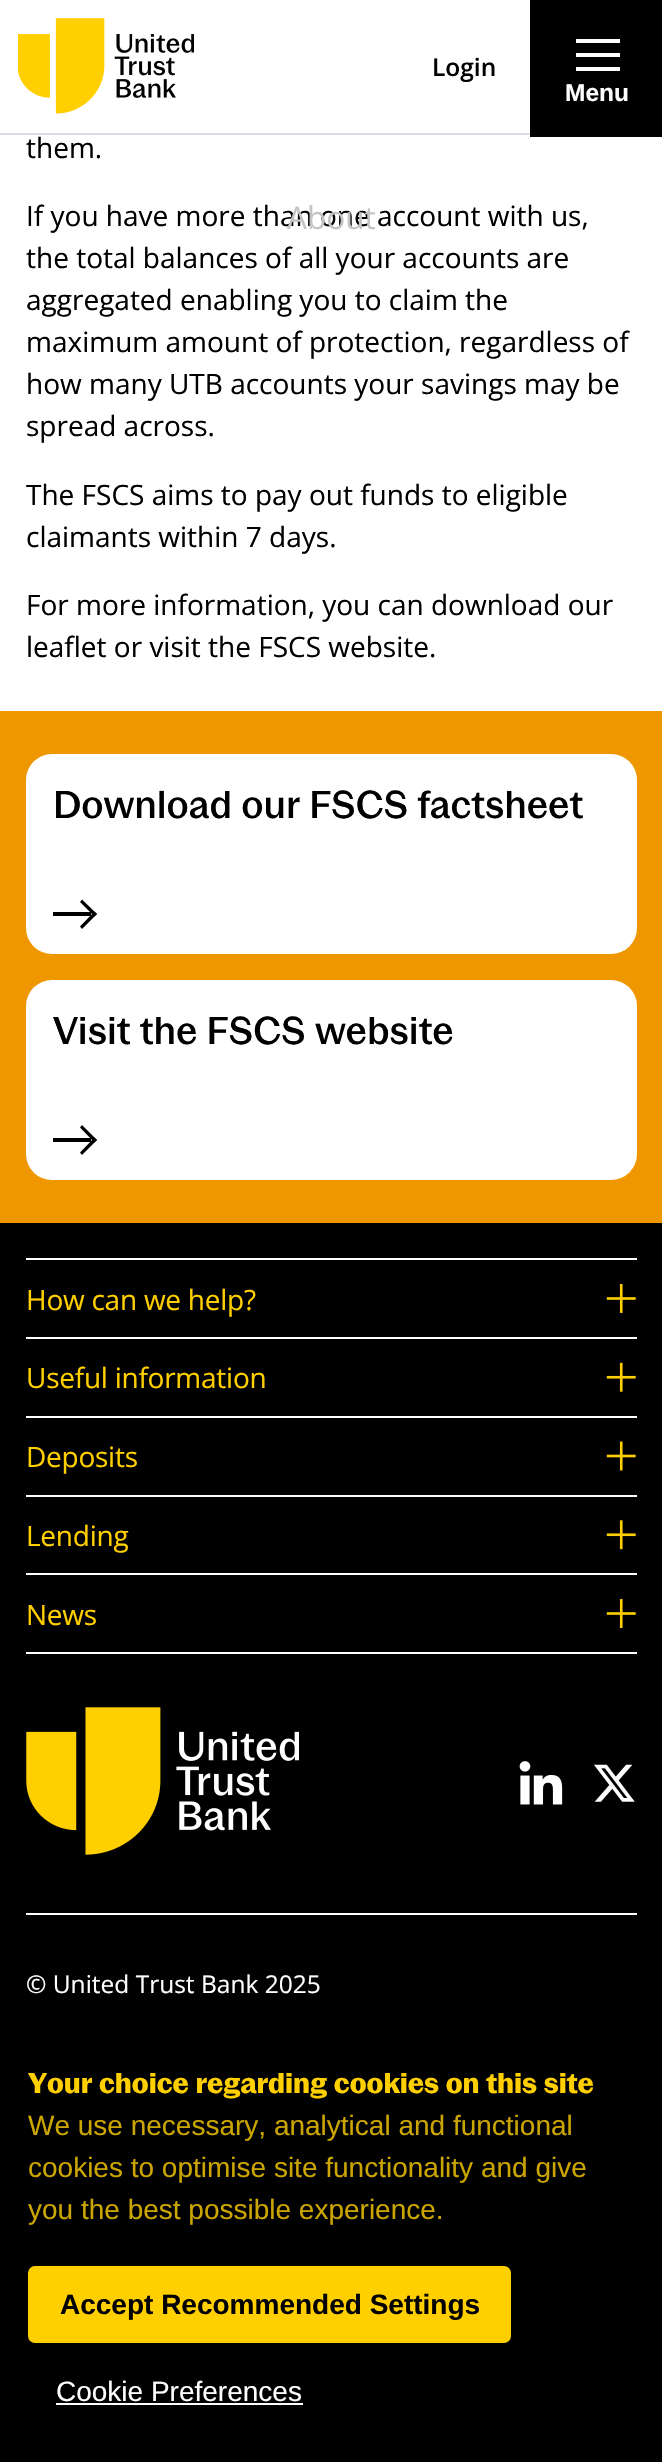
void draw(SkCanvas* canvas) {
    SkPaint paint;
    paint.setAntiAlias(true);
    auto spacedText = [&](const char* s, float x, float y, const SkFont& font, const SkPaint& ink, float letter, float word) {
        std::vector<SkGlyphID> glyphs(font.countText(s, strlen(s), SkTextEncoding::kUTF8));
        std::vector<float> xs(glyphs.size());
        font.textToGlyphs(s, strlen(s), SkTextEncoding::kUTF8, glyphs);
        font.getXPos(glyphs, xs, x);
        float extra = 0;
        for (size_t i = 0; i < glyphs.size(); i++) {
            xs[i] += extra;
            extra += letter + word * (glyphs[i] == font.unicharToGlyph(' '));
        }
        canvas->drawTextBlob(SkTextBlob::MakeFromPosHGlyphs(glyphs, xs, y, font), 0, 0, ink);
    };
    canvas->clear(0xFFFFFFFF);
    canvas->drawImageRect(SkImages::DeferredFromEncodedData(SkData::MakeFromFileName("img1.png")), SkRect::MakeXYWH(18, 18, 176, 96), SkSamplingOptions());
    SkFont font1(fontMgr->matchFamilyStyle("Open Sans", SkFontStyle(600, SkFontStyle::kNormal_Width, SkFontStyle::kUpright_Slant)), 24.5f);
    font1.setSubpixel(true);
    paint.setColor(0xFF000000);
    canvas->drawString("Login", 432, 76, font1, paint);
    canvas->drawRect(SkRect::MakeXYWH(530, 0, 132, 137), paint);
    paint.setColor(0xFFFFFFFF);
    canvas->drawRect(SkRect::MakeXYWH(576, 39, 44, 4), paint);
    canvas->drawRect(SkRect::MakeXYWH(576, 53, 44, 4), paint);
    canvas->drawRect(SkRect::MakeXYWH(576, 67, 44, 4), paint);
    SkFont font2(fontMgr->matchFamilyStyle("Liberation Sans", SkFontStyle::Bold()), 24.5f);
    font2.setSubpixel(true);
    canvas->drawString("Menu", 565, 101, font2, paint);
    paint.setColor(0xFFD9DAE3);
    canvas->drawRect(SkRect::MakeXYWH(0, 133, 530, 2), paint);
    SkFont font3(fontMgr->matchFamilyStyle("Open Sans", SkFontStyle::Normal()), 28);
    font3.setSubpixel(true);
    paint.setColor(0xFF000000);
    canvas->drawString("them.", 26, 158, font3, paint);
    canvas->drawString("If you have more than one account with us,", 26, 226, font3, paint);
    canvas->drawString("the total balances of all your accounts are", 26, 268, font3, paint);
    canvas->drawString("aggregated enabling you to claim the", 26, 310, font3, paint);
    canvas->drawString("maximum amount of protection, regardless of", 26, 352, font3, paint);
    canvas->drawString("how many UTB accounts your savings may be", 26, 394, font3, paint);
    canvas->drawString("spread across.", 26, 436, font3, paint);
    canvas->drawString("The FSCS aims to pay out funds to eligible", 26, 505, font3, paint);
    canvas->drawString("claimants within 7 days.", 26, 547, font3, paint);
    canvas->drawString("For more information, you can download our", 26, 615, font3, paint);
    canvas->drawString("leaflet or visit the FSCS website.", 26, 657, font3, paint);
    paint.setColor(0xFFEF9700);
    canvas->drawRect(SkRect::MakeXYWH(0, 711, 662, 512), paint);
    paint.setColor(0xFFFFFFFF);
    canvas->drawRoundRect(SkRect::MakeXYWH(26, 754, 611, 200), 26, 26, paint);
    SkFont font4(fontMgr->matchFamilyStyle("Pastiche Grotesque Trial", SkFontStyle(500, SkFontStyle::kNormal_Width, SkFontStyle::kUpright_Slant)), 38.5f);
    font4.setSubpixel(true);
    paint.setColor(0xFF000000);
    canvas->drawString("Download our FSCS factsheet", 53, 818, font4, paint);
    canvas->drawRect(SkRect::MakeXYWH(53, 912, 38, 4), paint);
    canvas->drawPath(SkPathBuilder().moveTo(80, 902).lineTo(82, 899.5f).lineTo(97, 914).lineTo(94.5f, 916.5f).close().detach(), paint);
    canvas->drawPath(SkPathBuilder().moveTo(80, 926.5f).lineTo(94.5f, 911.5f).lineTo(97, 914).lineTo(82, 929).close().detach(), paint);
    paint.setColor(0xFFFFFFFF);
    canvas->drawRoundRect(SkRect::MakeXYWH(26, 980, 611, 200), 26, 26, paint);
    paint.setColor(0xFF000000);
    canvas->drawString("Visit the FSCS website", 53, 1044, font4, paint);
    canvas->drawRect(SkRect::MakeXYWH(53, 1138, 38, 4), paint);
    canvas->drawPath(SkPathBuilder().moveTo(80, 1127.5f).lineTo(82, 1125).lineTo(97, 1140).lineTo(94.5f, 1142.5f).close().detach(), paint);
    canvas->drawPath(SkPathBuilder().moveTo(80, 1152.5f).lineTo(94.5f, 1137.5f).lineTo(97, 1140).lineTo(82, 1155).close().detach(), paint);
    SkFont font5(fontMgr->matchFamilyStyle("Open Sans", SkFontStyle::Normal()), 31.5f);
    font5.setSubpixel(true);
    paint.setColor(0xFFC4C4C4);
    canvas->drawString("About", 287, 229, font5, paint);
    paint.setColor(0xFF000000);
    canvas->drawRect(SkRect::MakeXYWH(0, 1223, 662, 1239), paint);
    paint.setColor(0xFFFFFFFF);
    canvas->drawRect(SkRect::MakeXYWH(26, 1258, 611, 2), paint);
    canvas->drawRect(SkRect::MakeXYWH(26, 1337, 611, 2), paint);
    paint.setColor(0xFFFFCF00);
    spacedText("How can we help?", 26, 1310, font3, paint, -0.25f, 0);
    canvas->drawImageRect(SkImages::DeferredFromEncodedData(SkData::MakeFromFileName("img2.png")), SkRect::MakeXYWH(606, 1284, 30, 29), SkSamplingOptions());
    paint.setColor(0xFFFFFFFF);
    canvas->drawRect(SkRect::MakeXYWH(26, 1416, 611, 2), paint);
    paint.setColor(0xFFFFCF00);
    spacedText("Useful information", 26, 1388, font3, paint, -0.25f, 0);
    canvas->drawImageRect(SkImages::DeferredFromEncodedData(SkData::MakeFromFileName("img3.png")), SkRect::MakeXYWH(606, 1362, 30, 30), SkSamplingOptions());
    paint.setColor(0xFFFFFFFF);
    canvas->drawRect(SkRect::MakeXYWH(26, 1495, 611, 2), paint);
    paint.setColor(0xFFFFCF00);
    spacedText("Deposits", 26, 1467, font3, paint, -0.25f, 0);
    canvas->drawImageRect(SkImages::DeferredFromEncodedData(SkData::MakeFromFileName("img4.png")), SkRect::MakeXYWH(606, 1441, 30, 30), SkSamplingOptions());
    paint.setColor(0xFFFFFFFF);
    canvas->drawRect(SkRect::MakeXYWH(26, 1573, 611, 2), paint);
    paint.setColor(0xFFFFCF00);
    spacedText("Lending", 26, 1546, font3, paint, -0.25f, 0);
    canvas->drawImageRect(SkImages::DeferredFromEncodedData(SkData::MakeFromFileName("img5.png")), SkRect::MakeXYWH(606, 1520, 30, 30), SkSamplingOptions());
    paint.setColor(0xFFFFFFFF);
    canvas->drawRect(SkRect::MakeXYWH(26, 1652, 611, 2), paint);
    paint.setColor(0xFFFFCF00);
    spacedText("News", 26, 1625, font3, paint, -0.25f, 0);
    canvas->drawImageRect(SkImages::DeferredFromEncodedData(SkData::MakeFromFileName("img2.png")), SkRect::MakeXYWH(606, 1599, 30, 29), SkSamplingOptions());
    canvas->drawImageRect(SkImages::DeferredFromEncodedData(SkData::MakeFromFileName("img6.png")), SkRect::MakeXYWH(26, 1707, 273, 148), SkSamplingOptions());
    canvas->drawImageRect(SkImages::DeferredFromEncodedData(SkData::MakeFromFileName("img7.png")), SkRect::MakeXYWH(519, 1761, 44, 44), SkSamplingOptions());
    canvas->drawImageRect(SkImages::DeferredFromEncodedData(SkData::MakeFromFileName("img8.png")), SkRect::MakeXYWH(594, 1764, 41, 38), SkSamplingOptions());
    paint.setColor(0xFFFFFFFF);
    canvas->drawRect(SkRect::MakeXYWH(26, 1913, 611, 2), paint);
    SkFont font6(fontMgr->matchFamilyStyle("Open Sans", SkFontStyle::Normal()), 24.5f);
    font6.setSubpixel(true);
    canvas->drawString("© United Trust Bank 2025", 26, 1993, font6, paint);
    SkFont font7(fontMgr->matchFamilyStyle("Pastiche Grotesque Trial", SkFontStyle::Bold()), 28);
    font7.setSubpixel(true);
    paint.setColor(0xFFFFCF00);
    canvas->drawString("Your choice regarding cookies on this site", 28, 2093, font7, paint);
    SkFont font8(fontMgr->matchFamilyStyle("Liberation Sans", SkFontStyle::Normal()), 28);
    font8.setSubpixel(true);
    paint.setColor(0xFFCCA600);
    canvas->drawString("We use necessary, analytical and functional", 28, 2135, font8, paint);
    canvas->drawString("cookies to optimise site functionality and give", 28, 2177, font8, paint);
    canvas->drawString("you the best possible experience.", 28, 2219, font8, paint);
    paint.setColor(0xFFFFCF00);
    canvas->drawRoundRect(SkRect::MakeXYWH(30, 2268, 479, 73), 5, 5, paint);
    paint.setStyle(SkPaint::kStroke_Style);
    paint.setStrokeWidth(4);
    canvas->drawRoundRect(SkRect::MakeXYWH(30, 2268, 479, 73), 5, 5, paint);
    SkFont font9(fontMgr->matchFamilyStyle("Liberation Sans", SkFontStyle::Bold()), 28);
    font9.setSubpixel(true);
    paint.setStyle(SkPaint::kFill_Style);
    paint.setColor(0xFF000000);
    canvas->drawString("Accept Recommended Settings", 60, 2314, font9, paint);
    paint.setColor(0xFFFFFFFF);
    canvas->drawString("Cookie Preferences", 56, 2401, font8, paint);
    canvas->drawRect(SkRect::MakeXYWH(56, 2403, 247, 2), paint);
}
